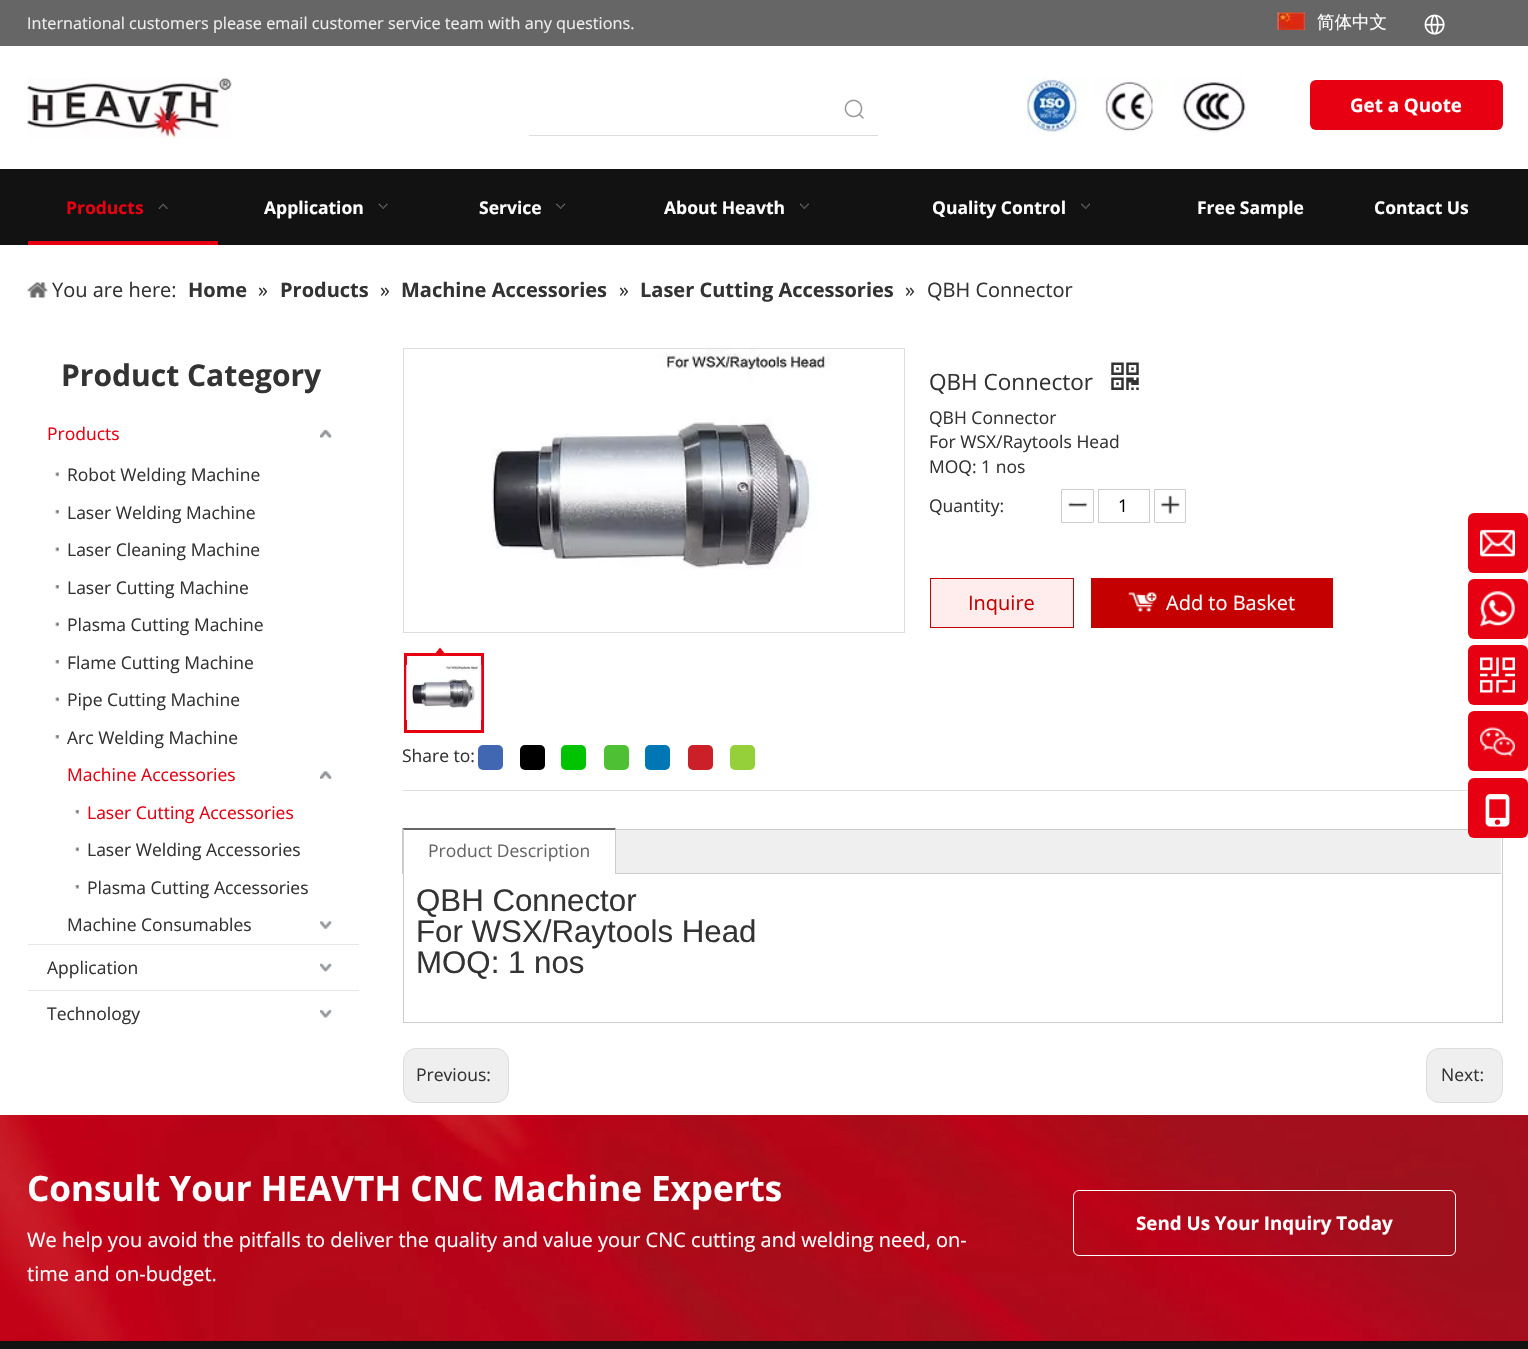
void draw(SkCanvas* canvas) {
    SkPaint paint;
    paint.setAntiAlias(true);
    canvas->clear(0xFFFFFFFF);
    paint.setColor(0xFF666666);
    canvas->drawRect(SkRect::MakeXYWH(0, 0, 1528, 46), paint);
    SkFont font1(fontMgr->matchFamilyStyle("Open Sans", SkFontStyle::Normal()), 16.25f);
    font1.setSubpixel(true);
    paint.setColor(0xFFEEEEEE);
    canvas->drawString("International customers please email customer service team with any questions.", 27, 29, font1, paint);
    canvas->drawImageRect(SkImages::DeferredFromEncodedData(SkData::MakeFromFileName("img1.png")), SkRect::MakeXYWH(1277, 12, 28, 18), SkSamplingOptions());
    SkFont font2(fontMgr->matchFamilyStyle("WenQuanYi Zen Hei", SkFontStyle(500, SkFontStyle::kNormal_Width, SkFontStyle::kUpright_Slant)), 17.5f);
    font2.setSubpixel(true);
    paint.setColor(0xFFFFFFFF);
    canvas->drawString("简体中文", 1317, 28, font2, paint);
    canvas->drawImageRect(SkImages::DeferredFromEncodedData(SkData::MakeFromFileName("img2.png")), SkRect::MakeXYWH(1424, 14, 21, 21), SkSamplingOptions());
    paint.setColor(0xFFEEEEEE);
    paint.setMaskFilter(SkMaskFilter::MakeBlur(kNormal_SkBlurStyle, 1));
    canvas->drawRect(SkRect::MakeXYWH(0, 48, 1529, 122), paint);
    paint.setMaskFilter(nullptr);
    paint.setColor(0xFFFFFFFF);
    canvas->drawRect(SkRect::MakeXYWH(0, 47, 1528, 122), paint);
    canvas->drawImageRect(SkImages::DeferredFromEncodedData(SkData::MakeFromFileName("img3.png")), SkRect::MakeXYWH(27, 77, 205, 61), SkSamplingOptions());
    paint.setColor(0xFFDDDDDD);
    canvas->drawRect(SkRect::MakeXYWH(529, 135, 349, 1), paint);
    canvas->drawImageRect(SkImages::DeferredFromEncodedData(SkData::MakeFromFileName("img4.png")), SkRect::MakeXYWH(844, 99, 20, 20), SkSamplingOptions());
    canvas->drawImageRect(SkImages::DeferredFromEncodedData(SkData::MakeFromFileName("img5.png")), SkRect::MakeXYWH(1027, 77, 220, 57), SkSamplingOptions());
    paint.setColor(0xFFE60012);
    canvas->drawRoundRect(SkRect::MakeXYWH(1310, 80, 193, 50), 6, 6, paint);
    SkFont font3(fontMgr->matchFamilyStyle("Open Sans", SkFontStyle::Bold()), 18.75f);
    font3.setSubpixel(true);
    paint.setColor(0xFFFFFFFF);
    canvas->drawString("Get a Quote", 1350, 112, font3, paint);
    paint.setColor(0xED000000);
    canvas->drawRect(SkRect::MakeXYWH(0, 169, 1528, 76), paint);
    paint.setColor(0xFFE60012);
    canvas->drawRect(SkRect::MakeXYWH(28, 241, 190, 4), paint);
    SkFont font4(fontMgr->matchFamilyStyle("Open Sans", SkFontStyle::Bold()), 17.5f);
    font4.setSubpixel(true);
    canvas->drawString("Products", 66, 214, font4, paint);
    canvas->drawImageRect(SkImages::DeferredFromEncodedData(SkData::MakeFromFileName("img6.png")), SkRect::MakeXYWH(158, 203, 10, 6), SkSamplingOptions());
    paint.setColor(0xFFFFFFFF);
    canvas->drawString("Application", 264, 214, font4, paint);
    canvas->drawImageRect(SkImages::DeferredFromEncodedData(SkData::MakeFromFileName("img7.png")), SkRect::MakeXYWH(378, 203, 10, 6), SkSamplingOptions());
    canvas->drawString("Service", 479, 214, font4, paint);
    canvas->drawImageRect(SkImages::DeferredFromEncodedData(SkData::MakeFromFileName("img8.png")), SkRect::MakeXYWH(556, 203, 9, 6), SkSamplingOptions());
    canvas->drawString("About Heavth", 664, 214, font4, paint);
    canvas->drawImageRect(SkImages::DeferredFromEncodedData(SkData::MakeFromFileName("img9.png")), SkRect::MakeXYWH(800, 203, 9, 6), SkSamplingOptions());
    canvas->drawString("Quality Control", 932, 214, font4, paint);
    canvas->drawImageRect(SkImages::DeferredFromEncodedData(SkData::MakeFromFileName("img8.png")), SkRect::MakeXYWH(1081, 203, 9, 6), SkSamplingOptions());
    canvas->drawString("Free Sample", 1197, 214, font4, paint);
    canvas->drawString("Contact Us", 1374, 214, font4, paint);
    canvas->drawImageRect(SkImages::DeferredFromEncodedData(SkData::MakeFromFileName("img10.png")), SkRect::MakeXYWH(27, 282, 21, 16), SkSamplingOptions());
    SkFont font5(fontMgr->matchFamilyStyle("Open Sans", SkFontStyle::Normal()), 20);
    font5.setSubpixel(true);
    paint.setColor(0xFF333333);
    canvas->drawString("You are here:", 52, 297, font5, paint);
    SkFont font6(fontMgr->matchFamilyStyle("Open Sans", SkFontStyle::Bold()), 20);
    font6.setSubpixel(true);
    canvas->drawString("Home", 188, 297, font6, paint);
    canvas->drawString("»", 258, 297, font5, paint);
    canvas->drawString("Products", 280, 297, font6, paint);
    canvas->drawString("»", 380, 297, font5, paint);
    canvas->drawString("Machine Accessories", 401, 297, font6, paint);
    canvas->drawString("»", 619, 297, font5, paint);
    canvas->drawString("Laser Cutting Accessories", 640, 297, font6, paint);
    canvas->drawString("»", 905, 297, font5, paint);
    canvas->drawString("QBH Connector", 927, 297, font5, paint);
    SkFont font7(fontMgr->matchFamilyStyle("Open Sans", SkFontStyle::Bold()), 30);
    font7.setSubpixel(true);
    canvas->drawString("Product Category", 61, 386, font7, paint);
    SkFont font8(fontMgr->matchFamilyStyle("Open Sans", SkFontStyle::Normal()), 17.5f);
    font8.setSubpixel(true);
    paint.setColor(0xFFE60012);
    canvas->drawString("Products", 47, 440, font8, paint);
    canvas->drawImageRect(SkImages::DeferredFromEncodedData(SkData::MakeFromFileName("img11.png")), SkRect::MakeXYWH(320, 429, 12, 9), SkSamplingOptions());
    canvas->drawImageRect(SkImages::DeferredFromEncodedData(SkData::MakeFromFileName("img12.png")), SkRect::MakeXYWH(55, 472, 4, 5), SkSamplingOptions());
    paint.setColor(0xFF333333);
    canvas->drawString("Robot Welding Machine", 67, 481, font8, paint);
    canvas->drawImageRect(SkImages::DeferredFromEncodedData(SkData::MakeFromFileName("img13.png")), SkRect::MakeXYWH(55, 510, 4, 4), SkSamplingOptions());
    canvas->drawString("Laser Welding Machine", 67, 519, font8, paint);
    canvas->drawImageRect(SkImages::DeferredFromEncodedData(SkData::MakeFromFileName("img12.png")), SkRect::MakeXYWH(55, 547, 4, 5), SkSamplingOptions());
    canvas->drawString("Laser Cleaning Machine", 67, 556, font8, paint);
    canvas->drawImageRect(SkImages::DeferredFromEncodedData(SkData::MakeFromFileName("img13.png")), SkRect::MakeXYWH(55, 585, 4, 4), SkSamplingOptions());
    canvas->drawString("Laser Cutting Machine", 67, 594, font8, paint);
    canvas->drawImageRect(SkImages::DeferredFromEncodedData(SkData::MakeFromFileName("img12.png")), SkRect::MakeXYWH(55, 622, 4, 5), SkSamplingOptions());
    canvas->drawString("Plasma Cutting Machine", 67, 631, font8, paint);
    canvas->drawImageRect(SkImages::DeferredFromEncodedData(SkData::MakeFromFileName("img13.png")), SkRect::MakeXYWH(55, 660, 4, 4), SkSamplingOptions());
    canvas->drawString("Flame Cutting Machine", 67, 669, font8, paint);
    canvas->drawImageRect(SkImages::DeferredFromEncodedData(SkData::MakeFromFileName("img12.png")), SkRect::MakeXYWH(55, 697, 4, 5), SkSamplingOptions());
    canvas->drawString("Pipe Cutting Machine", 67, 706, font8, paint);
    canvas->drawImageRect(SkImages::DeferredFromEncodedData(SkData::MakeFromFileName("img13.png")), SkRect::MakeXYWH(55, 735, 4, 4), SkSamplingOptions());
    canvas->drawString("Arc Welding Machine", 67, 744, font8, paint);
    paint.setColor(0xFFE60012);
    canvas->drawString("Machine Accessories", 67, 781, font8, paint);
    canvas->drawImageRect(SkImages::DeferredFromEncodedData(SkData::MakeFromFileName("img14.png")), SkRect::MakeXYWH(320, 771, 12, 8), SkSamplingOptions());
    canvas->drawImageRect(SkImages::DeferredFromEncodedData(SkData::MakeFromFileName("img13.png")), SkRect::MakeXYWH(75, 810, 4, 4), SkSamplingOptions());
    canvas->drawString("Laser Cutting Accessories", 87, 819, font8, paint);
    canvas->drawImageRect(SkImages::DeferredFromEncodedData(SkData::MakeFromFileName("img12.png")), SkRect::MakeXYWH(75, 847, 4, 5), SkSamplingOptions());
    paint.setColor(0xFF333333);
    canvas->drawString("Laser Welding Accessories", 87, 856, font8, paint);
    canvas->drawImageRect(SkImages::DeferredFromEncodedData(SkData::MakeFromFileName("img13.png")), SkRect::MakeXYWH(75, 885, 4, 4), SkSamplingOptions());
    canvas->drawString("Plasma Cutting Accessories", 87, 894, font8, paint);
    canvas->drawString("Machine Consumables", 67, 931, font8, paint);
    canvas->drawImageRect(SkImages::DeferredFromEncodedData(SkData::MakeFromFileName("img15.png")), SkRect::MakeXYWH(320, 921, 12, 8), SkSamplingOptions());
    paint.setColor(0xFFE7E7E7);
    canvas->drawRect(SkRect::MakeXYWH(28, 944, 331, 1), paint);
    paint.setColor(0xFF333333);
    canvas->drawString("Application", 47, 974, font8, paint);
    canvas->drawImageRect(SkImages::DeferredFromEncodedData(SkData::MakeFromFileName("img16.png")), SkRect::MakeXYWH(320, 963, 12, 9), SkSamplingOptions());
    paint.setColor(0xFFE7E7E7);
    canvas->drawRect(SkRect::MakeXYWH(28, 990, 331, 1), paint);
    paint.setColor(0xFF333333);
    canvas->drawString("Technology", 47, 1020, font8, paint);
    canvas->drawImageRect(SkImages::DeferredFromEncodedData(SkData::MakeFromFileName("img17.png")), SkRect::MakeXYWH(320, 1009, 12, 9), SkSamplingOptions());
    SkFont font9(fontMgr->matchFamilyStyle("Open Sans", SkFontStyle::Normal()), 22.5f);
    font9.setSubpixel(true);
    canvas->drawString("QBH Connector", 929, 390, font9, paint);
    canvas->drawImageRect(SkImages::DeferredFromEncodedData(SkData::MakeFromFileName("img18.png")), SkRect::MakeXYWH(1111, 362, 28, 28), SkSamplingOptions());
    canvas->drawString("QBH Connector", 929, 424, font8, paint);
    canvas->drawString("For WSX/Raytools Head", 929, 448, font8, paint);
    canvas->drawString("MOQ: 1 nos", 929, 473, font8, paint);
    canvas->drawString("Quantity:", 929, 512, font8, paint);
    canvas->drawImageRect(SkImages::DeferredFromEncodedData(SkData::MakeFromFileName("img19.png")), SkRect::MakeXYWH(1068, 502, 20, 5), SkSamplingOptions());
    paint.setStyle(SkPaint::kStroke_Style);
    paint.setStrokeWidth(1);
    paint.setColor(0xFFCCCCCC);
    canvas->drawRoundRect(SkRect::MakeXYWH(1061.5f, 489.5f, 32, 33), 0.5f, 0.5f, paint);
    canvas->drawRect(SkRect::MakeXYWH(1098.5f, 489.5f, 51, 33), paint);
    paint.setStyle(SkPaint::kFill_Style);
    paint.setColor(0xFF000000);
    canvas->drawString("1", 1118, 512, font8, paint);
    canvas->drawImageRect(SkImages::DeferredFromEncodedData(SkData::MakeFromFileName("img20.png")), SkRect::MakeXYWH(1161, 495, 19, 19), SkSamplingOptions());
    paint.setStyle(SkPaint::kStroke_Style);
    paint.setColor(0xFFCCCCCC);
    canvas->drawRoundRect(SkRect::MakeXYWH(1154.5f, 489.5f, 31, 33), 0.5f, 0.5f, paint);
    paint.setStyle(SkPaint::kFill_Style);
    paint.setColor(0xFFFFEDED);
    canvas->drawRect(SkRect::MakeXYWH(930.5f, 578.5f, 143, 49), paint);
    paint.setStyle(SkPaint::kStroke_Style);
    paint.setColor(0xFFC40000);
    canvas->drawRect(SkRect::MakeXYWH(930.5f, 578.5f, 143, 49), paint);
    paint.setStyle(SkPaint::kFill_Style);
    canvas->drawString("Inquire", 968, 610, font5, paint);
    canvas->drawRect(SkRect::MakeXYWH(1091, 578, 242, 50), paint);
    canvas->drawImageRect(SkImages::DeferredFromEncodedData(SkData::MakeFromFileName("img21.png")), SkRect::MakeXYWH(1128, 592, 29, 20), SkSamplingOptions());
    paint.setColor(0xFFFFFFFF);
    canvas->drawString("Add to Basket", 1166, 610, font5, paint);
    paint.setStyle(SkPaint::kStroke_Style);
    paint.setColor(0xFFDDDDDD);
    canvas->drawRect(SkRect::MakeXYWH(403.5f, 348.5f, 501, 284), paint);
    canvas->drawImageRect(SkImages::DeferredFromEncodedData(SkData::MakeFromFileName("img22.png")), SkRect::MakeXYWH(491, 349, 341, 220), SkSamplingOptions());
    paint.setStrokeWidth(3);
    paint.setColor(0xFFE60012);
    canvas->drawRect(SkRect::MakeXYWH(405.5f, 654.5f, 77, 77), paint);
    paint.setStyle(SkPaint::kFill_Style);
    canvas->drawPath(SkPathBuilder().moveTo(446, 655).lineTo(434, 655).lineTo(440, 647.5f).close().detach(), paint);
    canvas->drawImageRect(SkImages::DeferredFromEncodedData(SkData::MakeFromFileName("img23.png")), SkRect::MakeXYWH(406, 665, 76, 55), SkSamplingOptions());
    paint.setColor(0xFF333333);
    canvas->drawString("Share to:", 402, 762, font8, paint);
    paint.setColor(0xFF4267B2);
    canvas->drawRoundRect(SkRect::MakeXYWH(478, 745, 25, 25), 5, 5, paint);
    paint.setColor(0xFF000000);
    canvas->drawRoundRect(SkRect::MakeXYWH(520, 745, 25, 25), 5, 5, paint);
    paint.setColor(0xFF00C300);
    canvas->drawRoundRect(SkRect::MakeXYWH(561, 745, 25, 25), 5, 5, paint);
    paint.setColor(0xFF4EC034);
    canvas->drawRoundRect(SkRect::MakeXYWH(604, 745, 25, 25), 5, 5, paint);
    paint.setColor(0xFF0077B5);
    canvas->drawRoundRect(SkRect::MakeXYWH(645, 745, 25, 25), 5, 5, paint);
    paint.setColor(0xFFCB2027);
    canvas->drawRoundRect(SkRect::MakeXYWH(688, 745, 25, 25), 5, 5, paint);
    paint.setColor(0xFF95D03A);
    canvas->drawRoundRect(SkRect::MakeXYWH(730, 745, 25, 25), 5, 5, paint);
    paint.setColor(0xFFDFDFDF);
    canvas->drawRect(SkRect::MakeXYWH(403, 790, 1065, 1), paint);
    paint.setStyle(SkPaint::kStroke_Style);
    paint.setStrokeWidth(1);
    paint.setColor(0xFFCCCCCC);
    canvas->drawRect(SkRect::MakeXYWH(403.5f, 829.5f, 1099, 193), paint);
    paint.setStyle(SkPaint::kFill_Style);
    paint.setColor(0xFFEFEFEF);
    canvas->drawRect(SkRect::MakeXYWH(616, 830, 885, 43), paint);
    paint.setColor(0xFFCCCCCC);
    canvas->drawRect(SkRect::MakeXYWH(616, 873, 885, 1), paint);
    paint.setColor(0xFFFFFFFF);
    canvas->drawRect(SkRect::MakeXYWH(403, 829, 213, 45), paint);
    paint.setColor(0xFF666666);
    canvas->drawPath(SkPathBuilder().moveTo(402, 828).lineTo(616, 828).lineTo(615, 830).lineTo(404, 830).close().detach(), paint);
    paint.setColor(0xFFCCCCCC);
    canvas->drawPath(SkPathBuilder().moveTo(616, 828).lineTo(616, 874).lineTo(615, 874).lineTo(615, 830).close().detach(), paint);
    canvas->drawPath(SkPathBuilder().moveTo(402, 874).lineTo(402, 828).lineTo(404, 830).lineTo(404, 874).close().detach(), paint);
    paint.setColor(0xFF666666);
    canvas->drawString("Product Description", 428, 857, font8, paint);
    SkFont font10(fontMgr->matchFamilyStyle("Liberation Sans", SkFontStyle::Normal()), 31.25f);
    font10.setSubpixel(true);
    paint.setColor(0xFF333333);
    canvas->drawString("QBH Connector", 416, 911, font10, paint);
    canvas->drawString("For WSX/Raytools Head", 416, 942, font10, paint);
    canvas->drawString("MOQ: 1 nos", 416, 973, font10, paint);
    paint.setColor(0xFFEFEFEF);
    canvas->drawRoundRect(SkRect::MakeXYWH(403.5f, 1048.5f, 105, 54), 12.5f, 12.5f, paint);
    paint.setStyle(SkPaint::kStroke_Style);
    paint.setColor(0xFFDDDDDD);
    canvas->drawRoundRect(SkRect::MakeXYWH(403.5f, 1048.5f, 105, 54), 12.5f, 12.5f, paint);
    paint.setStyle(SkPaint::kFill_Style);
    paint.setColor(0xFF333333);
    canvas->drawString("Previous:", 416, 1081, font8, paint);
    paint.setColor(0xFFEFEFEF);
    canvas->drawRoundRect(SkRect::MakeXYWH(1426.5f, 1048.5f, 76, 54), 12.5f, 12.5f, paint);
    paint.setStyle(SkPaint::kStroke_Style);
    paint.setColor(0xFFDDDDDD);
    canvas->drawRoundRect(SkRect::MakeXYWH(1426.5f, 1048.5f, 76, 54), 12.5f, 12.5f, paint);
    paint.setStyle(SkPaint::kFill_Style);
    paint.setColor(0xFF333333);
    canvas->drawString("Next:", 1441, 1081, font8, paint);
    canvas->drawImageRect(SkImages::DeferredFromEncodedData(SkData::MakeFromFileName("img29.png")), SkRect::MakeXYWH(0, 1115, 1528, 227), SkSamplingOptions());
    paint.setColor(0xED000000);
    canvas->drawRect(SkRect::MakeXYWH(0, 1341, 1528, 8), paint);
    paint.setColor(0xFFE60012);
    canvas->drawRoundRect(SkRect::MakeXYWH(1468, 513, 60, 60), 6, 6, paint);
    canvas->drawImageRect(SkImages::DeferredFromEncodedData(SkData::MakeFromFileName("img24.png")), SkRect::MakeXYWH(1480, 529, 35, 28), SkSamplingOptions());
    canvas->drawRoundRect(SkRect::MakeXYWH(1468, 579, 60, 60), 6, 6, paint);
    canvas->drawImageRect(SkImages::DeferredFromEncodedData(SkData::MakeFromFileName("img25.png")), SkRect::MakeXYWH(1480, 591, 35, 36), SkSamplingOptions());
    canvas->drawRoundRect(SkRect::MakeXYWH(1468, 645, 60, 60), 6, 6, paint);
    canvas->drawImageRect(SkImages::DeferredFromEncodedData(SkData::MakeFromFileName("img26.png")), SkRect::MakeXYWH(1480, 657, 35, 36), SkSamplingOptions());
    canvas->drawRoundRect(SkRect::MakeXYWH(1468, 711, 60, 60), 6, 6, paint);
    canvas->drawImageRect(SkImages::DeferredFromEncodedData(SkData::MakeFromFileName("img27.png")), SkRect::MakeXYWH(1480, 727, 35, 30), SkSamplingOptions());
    canvas->drawRoundRect(SkRect::MakeXYWH(1468, 778, 60, 60), 6, 6, paint);
    canvas->drawImageRect(SkImages::DeferredFromEncodedData(SkData::MakeFromFileName("img28.png")), SkRect::MakeXYWH(1485, 794, 25, 33), SkSamplingOptions());
    SkFont font11(fontMgr->matchFamilyStyle("Open Sans", SkFontStyle::Bold()), 35);
    font11.setSubpixel(true);
    paint.setColor(0xFFFFFFFF);
    canvas->drawString("Consult Your HEAVTH CNC Machine Experts", 27, 1201, font11, paint);
    canvas->drawString("We help you avoid the pitfalls to deliver the quality and value your CNC cutting and welding need, on-", 27, 1247, font5, paint);
    canvas->drawString("time and on-budget.", 27, 1281, font5, paint);
    paint.setStyle(SkPaint::kStroke_Style);
    canvas->drawRoundRect(SkRect::MakeXYWH(1073.5f, 1190.5f, 382, 65), 5.5f, 5.5f, paint);
    paint.setStyle(SkPaint::kFill_Style);
    canvas->drawString("Send Us Your Inquiry Today", 1136, 1230, font3, paint);
}
